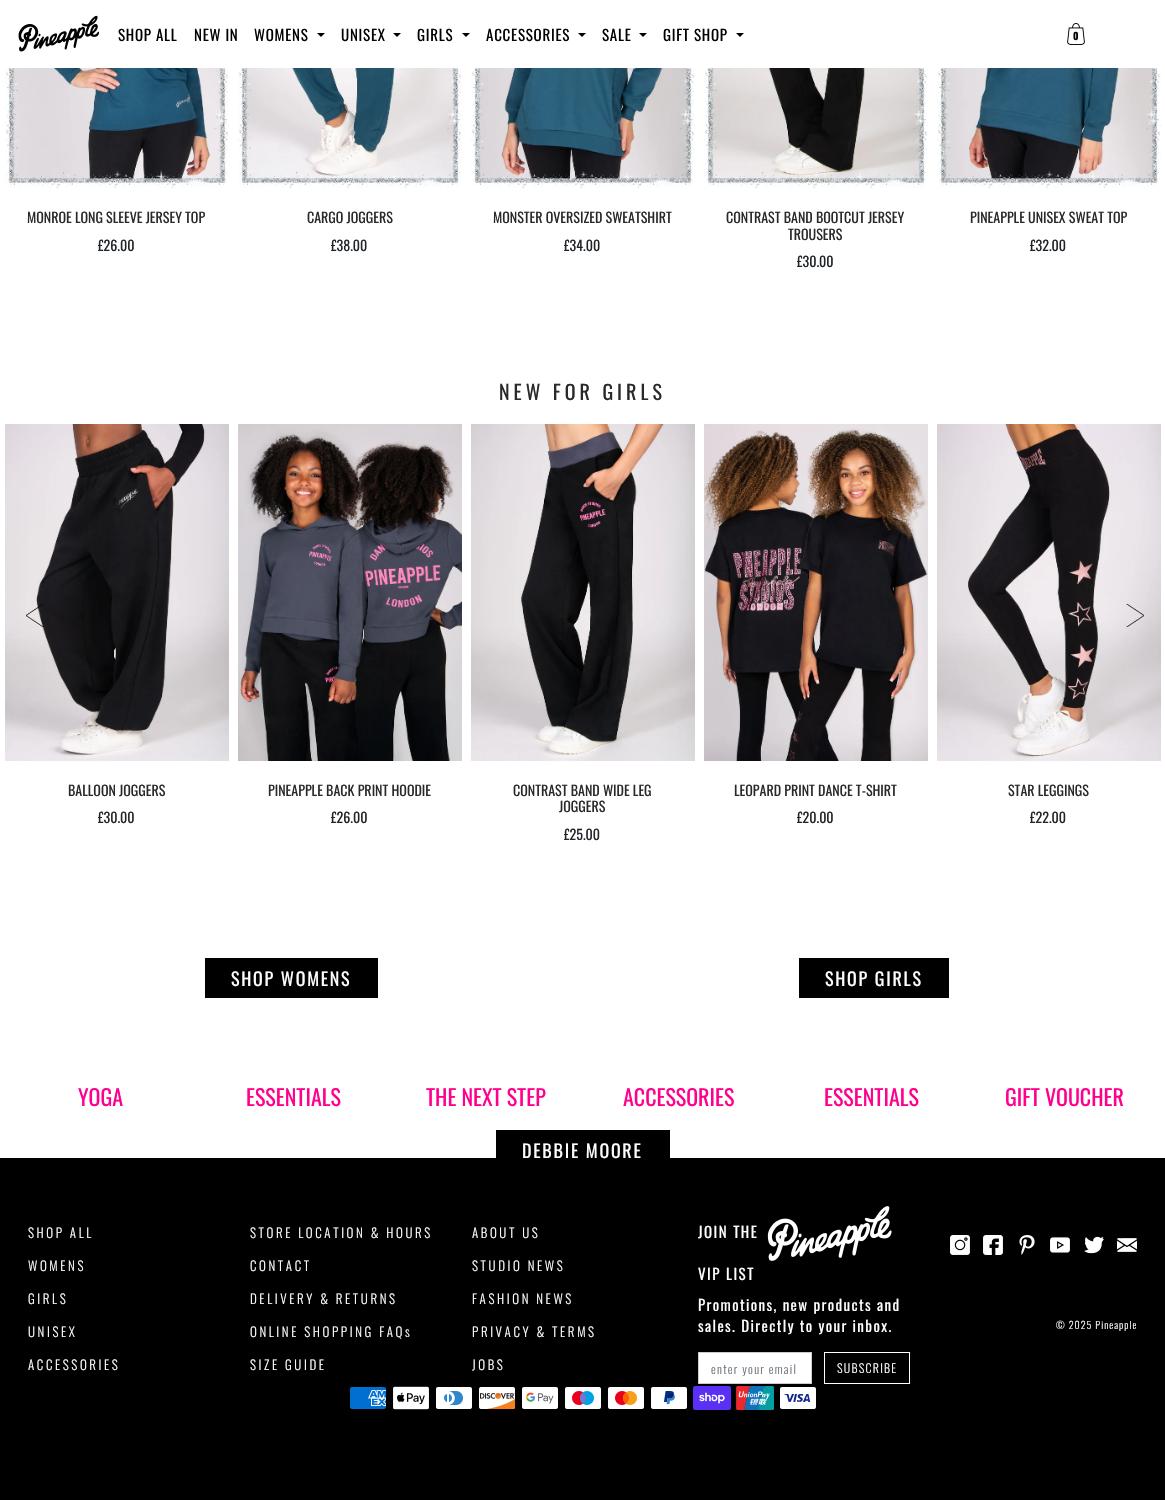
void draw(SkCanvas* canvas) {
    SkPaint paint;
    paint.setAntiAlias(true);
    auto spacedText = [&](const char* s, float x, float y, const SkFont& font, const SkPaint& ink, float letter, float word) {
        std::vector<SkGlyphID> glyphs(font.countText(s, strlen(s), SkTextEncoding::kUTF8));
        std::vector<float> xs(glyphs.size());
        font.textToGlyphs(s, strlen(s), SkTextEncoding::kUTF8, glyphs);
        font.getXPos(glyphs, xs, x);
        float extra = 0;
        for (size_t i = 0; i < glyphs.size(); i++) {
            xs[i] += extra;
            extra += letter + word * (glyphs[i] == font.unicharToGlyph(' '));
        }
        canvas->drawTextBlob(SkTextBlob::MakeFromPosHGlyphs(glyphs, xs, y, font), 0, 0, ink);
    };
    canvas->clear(0xFFFFFFFF);
    canvas->drawImageRect(SkImages::DeferredFromEncodedData(SkData::MakeFromFileName("img1.png")), SkRect::MakeXYWH(18, 15, 82, 37), SkSamplingOptions());
    SkFont font1(fontMgr->matchFamilyStyle("Oswald", SkFontStyle::Normal()), 15);
    font1.setSubpixel(true);
    paint.setColor(0xFF000000);
    spacedText("SHOP ALL", 118, 41, font1, paint, 0.75f, 0);
    spacedText("NEW IN", 194, 41, font1, paint, 0.75f, 0);
    spacedText("WOMENS", 254, 41, font1, paint, 0.75f, 0);
    canvas->drawPath(SkPathBuilder().moveTo(317, 33).lineTo(325, 33).lineTo(321, 37).close().detach(), paint);
    spacedText("UNISEX", 341, 41, font1, paint, 0.75f, 0);
    canvas->drawPath(SkPathBuilder().moveTo(393, 33).lineTo(401, 33).lineTo(397, 37).close().detach(), paint);
    spacedText("GIRLS", 417, 41, font1, paint, 0.75f, 0);
    canvas->drawPath(SkPathBuilder().moveTo(462, 33).lineTo(470, 33).lineTo(466, 37).close().detach(), paint);
    spacedText("ACCESSORIES", 486, 41, font1, paint, 0.75f, 0);
    canvas->drawPath(SkPathBuilder().moveTo(578, 33).lineTo(586, 33).lineTo(582, 37).close().detach(), paint);
    spacedText("SALE", 602, 41, font1, paint, 0.75f, 0);
    canvas->drawPath(SkPathBuilder().moveTo(639, 33).lineTo(647, 33).lineTo(643, 37).close().detach(), paint);
    spacedText("GIFT SHOP", 663, 41, font1, paint, 0.75f, 0);
    canvas->drawPath(SkPathBuilder().moveTo(736, 33).lineTo(744, 33).lineTo(740, 37).close().detach(), paint);
    canvas->drawImageRect(SkImages::DeferredFromEncodedData(SkData::MakeFromFileName("img2.png")), SkRect::MakeXYWH(1067, 23, 18, 22), SkSamplingOptions());
    SkFont font2(fontMgr->matchFamilyStyle("Oswald", SkFontStyle::Bold()), 10);
    font2.setSubpixel(true);
    spacedText("0", 1073, 40, font2, paint, 0.75f, 0);
    canvas->drawImageRect(SkImages::DeferredFromEncodedData(SkData::MakeFromFileName("img3.png")), SkRect::MakeXYWH(5, 68, 224, 120), SkSamplingOptions());
    SkFont font3(fontMgr->matchFamilyStyle("Oswald", SkFontStyle::Normal()), 14);
    font3.setSubpixel(true);
    paint.setColor(0xFF292929);
    canvas->drawString("MONROE LONG SLEEVE JERSEY TOP", 27, 223, font3, paint);
    paint.setColor(0xFF212529);
    canvas->drawString("£26.00", 98, 251, font3, paint);
    canvas->drawImageRect(SkImages::DeferredFromEncodedData(SkData::MakeFromFileName("img4.png")), SkRect::MakeXYWH(238, 68, 224, 120), SkSamplingOptions());
    paint.setColor(0xFF292929);
    canvas->drawString("CARGO JOGGERS", 307, 223, font3, paint);
    paint.setColor(0xFF212529);
    canvas->drawString("£38.00", 331, 251, font3, paint);
    canvas->drawImageRect(SkImages::DeferredFromEncodedData(SkData::MakeFromFileName("img5.png")), SkRect::MakeXYWH(471, 68, 224, 120), SkSamplingOptions());
    paint.setColor(0xFF292929);
    canvas->drawString("MONSTER OVERSIZED SWEATSHIRT", 493, 223, font3, paint);
    paint.setColor(0xFF212529);
    canvas->drawString("£34.00", 564, 251, font3, paint);
    canvas->drawImageRect(SkImages::DeferredFromEncodedData(SkData::MakeFromFileName("img6.png")), SkRect::MakeXYWH(704, 68, 224, 120), SkSamplingOptions());
    paint.setColor(0xFF292929);
    canvas->drawString("CONTRAST BAND BOOTCUT JERSEY", 726, 223, font3, paint);
    canvas->drawString("TROUSERS", 788, 240, font3, paint);
    paint.setColor(0xFF212529);
    canvas->drawString("£30.00", 797, 267, font3, paint);
    canvas->drawImageRect(SkImages::DeferredFromEncodedData(SkData::MakeFromFileName("img7.png")), SkRect::MakeXYWH(937, 68, 224, 120), SkSamplingOptions());
    paint.setColor(0xFF292929);
    canvas->drawString("PINEAPPLE UNISEX SWEAT TOP", 970, 223, font3, paint);
    paint.setColor(0xFF212529);
    canvas->drawString("£32.00", 1030, 251, font3, paint);
    SkFont font4(fontMgr->matchFamilyStyle("Oswald", SkFontStyle::Normal()), 20);
    font4.setSubpixel(true);
    paint.setColor(0xFF292929);
    spacedText("NEW FOR GIRLS", 499, 400, font4, paint, 4, 0);
    canvas->drawImageRect(SkImages::DeferredFromEncodedData(SkData::MakeFromFileName("img10.png")), SkRect::MakeXYWH(5, 424, 224, 337), SkSamplingOptions());
    canvas->drawImageRect(SkImages::DeferredFromEncodedData(SkData::MakeFromFileName("img8.png")), SkRect::MakeXYWH(26, 604, 18, 23), SkSamplingOptions());
    canvas->drawImageRect(SkImages::DeferredFromEncodedData(SkData::MakeFromFileName("img14.png")), SkRect::MakeXYWH(937, 424, 224, 337), SkSamplingOptions());
    canvas->drawImageRect(SkImages::DeferredFromEncodedData(SkData::MakeFromFileName("img9.png")), SkRect::MakeXYWH(1126, 604, 18, 23), SkSamplingOptions());
    canvas->drawString("BALLOON JOGGERS", 68, 796, font3, paint);
    paint.setColor(0xFF212529);
    canvas->drawString("£30.00", 98, 823, font3, paint);
    canvas->drawImageRect(SkImages::DeferredFromEncodedData(SkData::MakeFromFileName("img11.png")), SkRect::MakeXYWH(238, 424, 224, 337), SkSamplingOptions());
    paint.setColor(0xFF292929);
    canvas->drawString("PINEAPPLE BACK PRINT HOODIE", 268, 796, font3, paint);
    paint.setColor(0xFF212529);
    canvas->drawString("£26.00", 331, 823, font3, paint);
    canvas->drawImageRect(SkImages::DeferredFromEncodedData(SkData::MakeFromFileName("img12.png")), SkRect::MakeXYWH(471, 424, 224, 337), SkSamplingOptions());
    paint.setColor(0xFF292929);
    canvas->drawString("CONTRAST BAND WIDE LEG", 513, 796, font3, paint);
    canvas->drawString("JOGGERS", 559, 812, font3, paint);
    paint.setColor(0xFF212529);
    canvas->drawString("£25.00", 564, 840, font3, paint);
    canvas->drawImageRect(SkImages::DeferredFromEncodedData(SkData::MakeFromFileName("img13.png")), SkRect::MakeXYWH(704, 424, 224, 337), SkSamplingOptions());
    paint.setColor(0xFF292929);
    canvas->drawString("LEOPARD PRINT DANCE T-SHIRT", 734, 796, font3, paint);
    paint.setColor(0xFF212529);
    canvas->drawString("£20.00", 797, 823, font3, paint);
    paint.setColor(0xFF292929);
    canvas->drawString("STAR LEGGINGS", 1008, 796, font3, paint);
    paint.setColor(0xFF212529);
    canvas->drawString("£22.00", 1030, 823, font3, paint);
    paint.setColor(0xFF000000);
    canvas->drawRect(SkRect::MakeXYWH(205, 958, 173, 40), paint);
    SkFont font5(fontMgr->matchFamilyStyle("Oswald", SkFontStyle::Normal()), 18);
    font5.setSubpixel(true);
    paint.setColor(0xFFFFFFFF);
    spacedText("SHOP WOMENS", 231, 986, font5, paint, 1.75f, 0);
    paint.setColor(0xFF000000);
    canvas->drawRect(SkRect::MakeXYWH(799, 958, 150, 40), paint);
    paint.setColor(0xFFFFFFFF);
    spacedText("SHOP GIRLS", 825, 986, font5, paint, 1.75f, 0);
    SkFont font6(fontMgr->matchFamilyStyle("Oswald", SkFontStyle::Normal()), 22);
    font6.setSubpixel(true);
    paint.setColor(0xFFFF008D);
    canvas->drawString("YOGA", 78, 1106, font6, paint);
    canvas->drawString("ESSENTIALS", 246, 1106, font6, paint);
    canvas->drawString("THE NEXT STEP", 426, 1106, font6, paint);
    canvas->drawString("ACCESSORIES", 623, 1106, font6, paint);
    canvas->drawString("ESSENTIALS", 824, 1106, font6, paint);
    canvas->drawString("GIFT VOUCHER", 1005, 1106, font6, paint);
    paint.setColor(0xFF000000);
    canvas->drawRect(SkRect::MakeXYWH(496, 1130, 174, 28), paint);
    canvas->drawRect(SkRect::MakeXYWH(0, 1158, 1165, 342), paint);
    paint.setColor(0xFFFFFFFF);
    spacedText("DEBBIE MOORE", 522, 1158, font5, paint, 1.75f, 0);
    SkFont font7(fontMgr->matchFamilyStyle("Oswald", SkFontStyle(300, SkFontStyle::kNormal_Width, SkFontStyle::kUpright_Slant)), 13);
    font7.setSubpixel(true);
    spacedText("SHOP ALL", 28, 1238, font7, paint, 2.6f, 0);
    spacedText("WOMENS", 28, 1271, font7, paint, 2.6f, 0);
    spacedText("GIRLS", 28, 1304, font7, paint, 2.6f, 0);
    spacedText("UNISEX", 28, 1337, font7, paint, 2.6f, 0);
    spacedText("ACCESSORIES", 28, 1370, font7, paint, 2.6f, 0);
    spacedText("STORE LOCATION & HOURS", 250, 1238, font7, paint, 2.6f, 0);
    spacedText("CONTACT", 250, 1271, font7, paint, 2.6f, 0);
    spacedText("DELIVERY & RETURNS", 250, 1304, font7, paint, 2.6f, 0);
    spacedText("ONLINE SHOPPING FAQs", 250, 1337, font7, paint, 2.6f, 0);
    spacedText("SIZE GUIDE", 250, 1370, font7, paint, 2.6f, 0);
    spacedText("ABOUT US", 472, 1238, font7, paint, 2.6f, 0);
    spacedText("STUDIO NEWS", 472, 1271, font7, paint, 2.6f, 0);
    spacedText("FASHION NEWS", 472, 1304, font7, paint, 2.6f, 0);
    spacedText("PRIVACY & TERMS", 472, 1337, font7, paint, 2.6f, 0);
    spacedText("JOBS", 472, 1370, font7, paint, 2.6f, 0);
    spacedText("JOIN THE", 698, 1238, font1, paint, 1.5f, 0);
    canvas->drawImageRect(SkImages::DeferredFromEncodedData(SkData::MakeFromFileName("img15.png")), SkRect::MakeXYWH(767, 1206, 125, 55), SkSamplingOptions());
    spacedText("VIP LIST", 698, 1280, font1, paint, 1.5f, 0);
    spacedText("Promotions, new products and", 698, 1311, font1, paint, 1.4f, 0);
    spacedText("sales. Directly to your inbox.", 698, 1332, font1, paint, 1.4f, 0);
    canvas->drawRect(SkRect::MakeXYWH(698.5f, 1352.5f, 113, 31), paint);
    paint.setStyle(SkPaint::kStroke_Style);
    paint.setStrokeWidth(1);
    paint.setColor(0xFFCCCCCC);
    canvas->drawRect(SkRect::MakeXYWH(698.5f, 1352.5f, 113, 31), paint);
    SkFont font8(fontMgr->matchFamilyStyle("Oswald", SkFontStyle(300, SkFontStyle::kNormal_Width, SkFontStyle::kUpright_Slant)), 12);
    font8.setSubpixel(true);
    paint.setStyle(SkPaint::kFill_Style);
    paint.setColor(0xFF6C757D);
    spacedText("enter your email", 711, 1374, font8, paint, 1.25f, 0);
    paint.setStyle(SkPaint::kStroke_Style);
    paint.setColor(0xFFFFFFFF);
    canvas->drawRect(SkRect::MakeXYWH(824.5f, 1352.5f, 85, 31), paint);
    paint.setStyle(SkPaint::kFill_Style);
    spacedText("SUBSCRIBE", 837, 1373, font8, paint, 1.25f, 0);
    canvas->drawImageRect(SkImages::DeferredFromEncodedData(SkData::MakeFromFileName("img16.png")), SkRect::MakeXYWH(950, 1235, 20, 20), SkSamplingOptions());
    canvas->drawImageRect(SkImages::DeferredFromEncodedData(SkData::MakeFromFileName("img17.png")), SkRect::MakeXYWH(983, 1235, 20, 20), SkSamplingOptions());
    canvas->drawImageRect(SkImages::DeferredFromEncodedData(SkData::MakeFromFileName("img18.png")), SkRect::MakeXYWH(1019, 1235, 16, 20), SkSamplingOptions());
    canvas->drawImageRect(SkImages::DeferredFromEncodedData(SkData::MakeFromFileName("img19.png")), SkRect::MakeXYWH(1050, 1237, 20, 16), SkSamplingOptions());
    canvas->drawImageRect(SkImages::DeferredFromEncodedData(SkData::MakeFromFileName("img20.png")), SkRect::MakeXYWH(1084, 1236, 20, 18), SkSamplingOptions());
    canvas->drawImageRect(SkImages::DeferredFromEncodedData(SkData::MakeFromFileName("img21.png")), SkRect::MakeXYWH(1117, 1238, 20, 14), SkSamplingOptions());
    SkFont font9(fontMgr->matchFamilyStyle("Oswald", SkFontStyle(300, SkFontStyle::kNormal_Width, SkFontStyle::kUpright_Slant)), 10);
    font9.setSubpixel(true);
    spacedText("© 2025 Pineapple", 1056, 1329, font9, paint, 1, 0);
    canvas->drawImageRect(SkImages::DeferredFromEncodedData(SkData::MakeFromFileName("img22.png")), SkRect::MakeXYWH(350, 1387, 36, 22), SkSamplingOptions());
    canvas->drawImageRect(SkImages::DeferredFromEncodedData(SkData::MakeFromFileName("img23.png")), SkRect::MakeXYWH(393, 1386, 36, 24), SkSamplingOptions());
    canvas->drawImageRect(SkImages::DeferredFromEncodedData(SkData::MakeFromFileName("img24.png")), SkRect::MakeXYWH(436, 1387, 36, 22), SkSamplingOptions());
    canvas->drawImageRect(SkImages::DeferredFromEncodedData(SkData::MakeFromFileName("img25.png")), SkRect::MakeXYWH(479, 1387, 37, 22), SkSamplingOptions());
    canvas->drawImageRect(SkImages::DeferredFromEncodedData(SkData::MakeFromFileName("img26.png")), SkRect::MakeXYWH(522, 1387, 36, 22), SkSamplingOptions());
    canvas->drawImageRect(SkImages::DeferredFromEncodedData(SkData::MakeFromFileName("img27.png")), SkRect::MakeXYWH(565, 1387, 36, 22), SkSamplingOptions());
    canvas->drawImageRect(SkImages::DeferredFromEncodedData(SkData::MakeFromFileName("img28.png")), SkRect::MakeXYWH(608, 1387, 36, 22), SkSamplingOptions());
    canvas->drawImageRect(SkImages::DeferredFromEncodedData(SkData::MakeFromFileName("img29.png")), SkRect::MakeXYWH(651, 1387, 36, 22), SkSamplingOptions());
    canvas->drawImageRect(SkImages::DeferredFromEncodedData(SkData::MakeFromFileName("img30.png")), SkRect::MakeXYWH(693, 1386, 38, 24), SkSamplingOptions());
    canvas->drawImageRect(SkImages::DeferredFromEncodedData(SkData::MakeFromFileName("img31.png")), SkRect::MakeXYWH(736, 1386, 38, 24), SkSamplingOptions());
    canvas->drawImageRect(SkImages::DeferredFromEncodedData(SkData::MakeFromFileName("img32.png")), SkRect::MakeXYWH(780, 1387, 36, 22), SkSamplingOptions());
}
